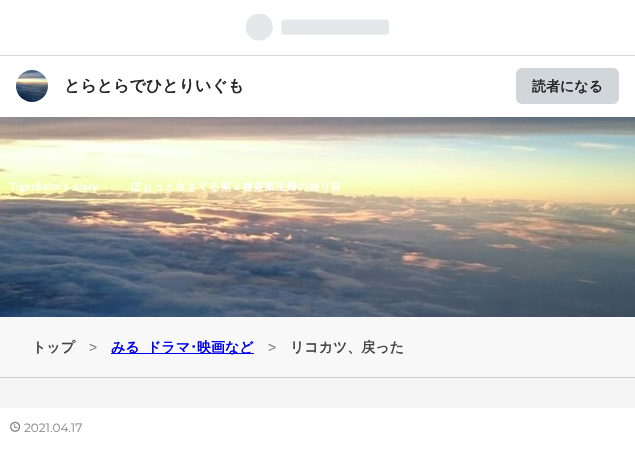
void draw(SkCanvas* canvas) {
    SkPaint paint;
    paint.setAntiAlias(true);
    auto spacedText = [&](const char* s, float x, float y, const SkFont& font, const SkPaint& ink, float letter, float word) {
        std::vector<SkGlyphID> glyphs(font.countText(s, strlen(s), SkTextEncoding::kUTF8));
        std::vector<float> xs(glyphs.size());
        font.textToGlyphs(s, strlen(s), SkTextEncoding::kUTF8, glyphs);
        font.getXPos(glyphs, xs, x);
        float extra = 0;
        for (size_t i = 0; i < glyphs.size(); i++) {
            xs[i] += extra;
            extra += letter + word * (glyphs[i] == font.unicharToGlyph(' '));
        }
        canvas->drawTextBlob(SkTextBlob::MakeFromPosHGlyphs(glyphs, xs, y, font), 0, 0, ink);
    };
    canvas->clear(0xFFFFFFFF);
    paint.setColor(0xFFD2D8DD);
    canvas->drawRect(SkRect::MakeXYWH(0, 55, 635, 1), paint);
    canvas->drawImageRect(SkImages::DeferredFromEncodedData(SkData::MakeFromFileName("img1.png")), SkRect::MakeXYWH(246, 14, 143, 27), SkSamplingOptions());
    canvas->drawImageRect(SkImages::DeferredFromEncodedData(SkData::MakeFromFileName("img2.png")), SkRect::MakeXYWH(16, 70, 32, 32), SkSamplingOptions());
    SkFont font1(fontMgr->matchFamilyStyle("WenQuanYi Zen Hei", SkFontStyle::Bold()), 16);
    font1.setSubpixel(true);
    paint.setColor(0xFF242527);
    canvas->drawString("とらとらでひとりいぐも", 64, 91, font1, paint);
    paint.setColor(0xFFD1D6DA);
    canvas->drawRoundRect(SkRect::MakeXYWH(516, 68, 103, 36), 6, 6, paint);
    SkFont font2(fontMgr->matchFamilyStyle("WenQuanYi Zen Hei", SkFontStyle::Bold()), 14);
    font2.setSubpixel(true);
    paint.setColor(0xFF242527);
    canvas->drawString("読者になる", 532, 91, font2, paint);
    canvas->drawImageRect(SkImages::DeferredFromEncodedData(SkData::MakeFromFileName("img3.png")), SkRect::MakeXYWH(0, 117, 635, 200), SkSamplingOptions());
    SkFont font3(fontMgr->matchFamilyStyle("Cabin", SkFontStyle::Bold()), 10);
    font3.setSubpixel(true);
    paint.setColor(0xFFFFFFFF);
    spacedText("TigerBalm's diary", 10, 190, font3, paint, 1, 0);
    SkFont font4(fontMgr->matchFamilyStyle("WenQuanYi Zen Hei", SkFontStyle::Bold()), 10);
    font4.setSubpixel(true);
    spacedText("ぼぉっと生きてる第２種兼業主婦の独り言", 131, 190, font4, paint, 1, 0);
    paint.setColor(0xFFF8F8F8);
    canvas->drawRect(SkRect::MakeXYWH(0, 317, 635, 60), paint);
    paint.setColor(0xFFCCCCCC);
    canvas->drawRect(SkRect::MakeXYWH(0, 377, 635, 1), paint);
    paint.setColor(0xFF444444);
    canvas->drawString("トップ", 32, 352, font2, paint);
    SkFont font5(fontMgr->matchFamilyStyle("Liberation Sans", SkFontStyle::Normal()), 14);
    font5.setSubpixel(true);
    paint.setColor(0xFF7A7A7A);
    canvas->drawString(">", 89, 352, font5, paint);
    paint.setColor(0xFF0000EE);
    canvas->drawRect(SkRect::MakeXYWH(111, 353, 143, 1), paint);
    canvas->drawString("みる", 111, 352, font2, paint);
    canvas->drawString("ドラマ", 147, 352, font2, paint);
    SkFont font6(fontMgr->matchFamilyStyle("IPAPGothic", SkFontStyle::Bold()), 14);
    font6.setSubpixel(true);
    canvas->drawString("･", 190, 352, font6, paint);
    canvas->drawString("映画など", 197, 352, font2, paint);
    paint.setColor(0xFF7A7A7A);
    canvas->drawString(">", 268, 352, font5, paint);
    paint.setColor(0xFF444444);
    canvas->drawString("リコカツ、戻った", 290, 352, font2, paint);
    paint.setColor(0xFFF5F5F5);
    canvas->drawRect(SkRect::MakeXYWH(0, 378, 635, 30), paint);
    canvas->drawImageRect(SkImages::DeferredFromEncodedData(SkData::MakeFromFileName("img4.png")), SkRect::MakeXYWH(10, 421, 11, 11), SkSamplingOptions());
    SkFont font7(fontMgr->matchFamilyStyle("Montserrat", SkFontStyle(100, SkFontStyle::kNormal_Width, SkFontStyle::kUpright_Slant)), 12);
    font7.setSubpixel(true);
    paint.setColor(0xFF888888);
    canvas->drawString("2021.04.17", 24, 432, font7, paint);
}
